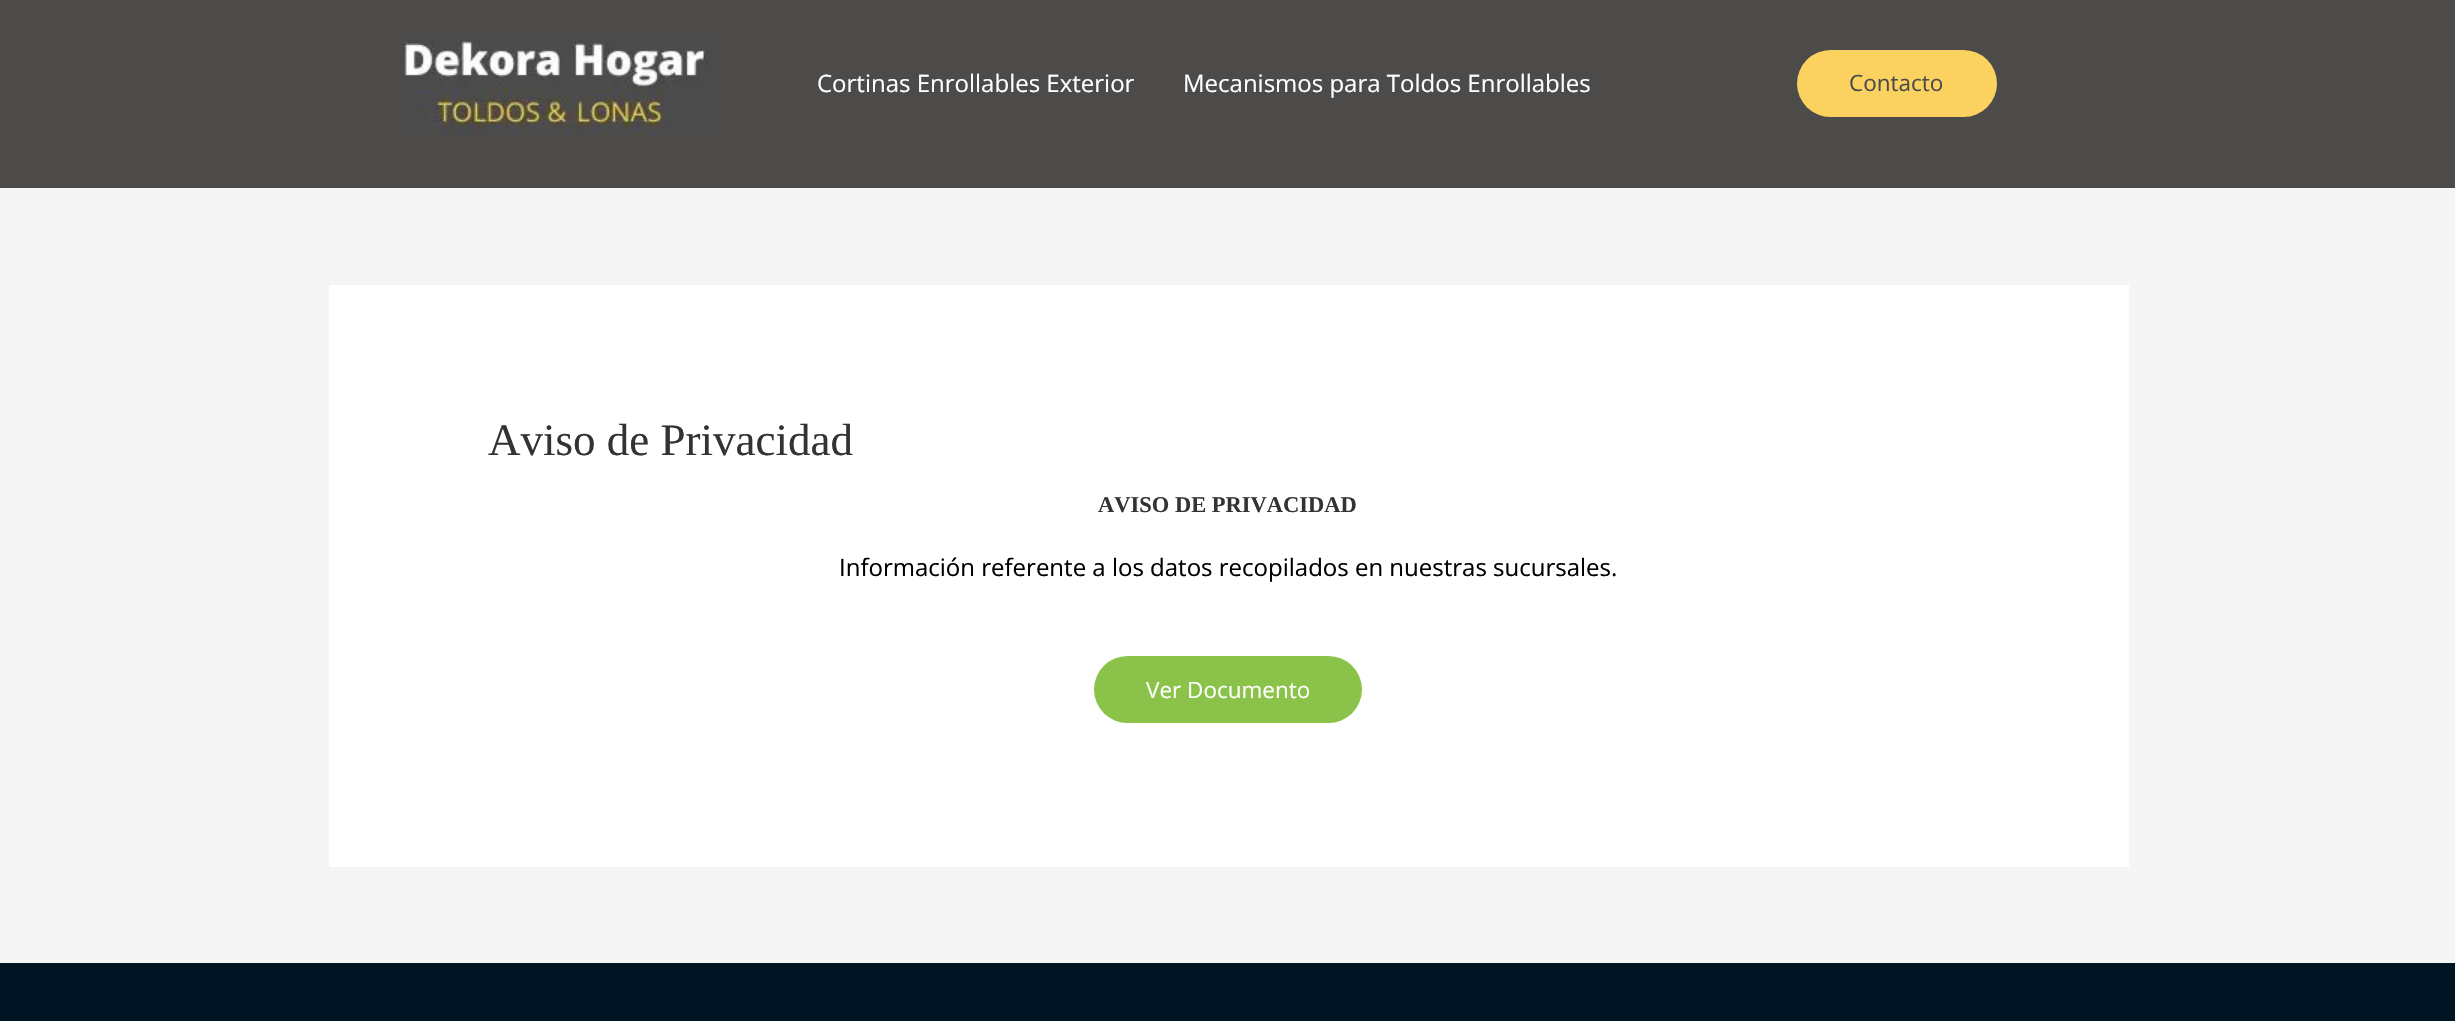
void draw(SkCanvas* canvas) {
    SkPaint paint;
    paint.setAntiAlias(true);
    canvas->clear(0xFFF5F5F5);
    paint.setColor(0xFF4C4B4A);
    canvas->drawRect(SkRect::MakeXYWH(0, 0, 2455, 188), paint);
    canvas->drawImageRect(SkImages::DeferredFromEncodedData(SkData::MakeFromFileName("img1.png")), SkRect::MakeXYWH(403, 39, 306, 97), SkSamplingOptions());
    SkFont font1(fontMgr->matchFamilyStyle("Open Sans", SkFontStyle::Normal()), 24);
    font1.setSubpixel(true);
    paint.setColor(0xFFFFFFFF);
    canvas->drawString("Cortinas Enrollables Exterior", 817, 92, font1, paint);
    canvas->drawString("Mecanismos para Toldos Enrollables", 1183, 92, font1, paint);
    paint.setColor(0xFFFBD160);
    canvas->drawRoundRect(SkRect::MakeXYWH(1797, 50, 200, 67), 33.5f, 33.5f, paint);
    SkFont font2(fontMgr->matchFamilyStyle("Open Sans", SkFontStyle::Normal()), 22.5f);
    font2.setSubpixel(true);
    paint.setColor(0xFF4B4B4B);
    canvas->drawString("Contacto", 1849, 91, font2, paint);
    paint.setColor(0xFFFFFFFF);
    canvas->drawRect(SkRect::MakeXYWH(329, 285, 1800, 582), paint);
    SkFont font3(fontMgr->matchFamilyStyle("Liberation Serif", SkFontStyle::Normal()), 45);
    font3.setSubpixel(true);
    paint.setColor(0xFF333333);
    canvas->drawString("Aviso de Privacidad", 488, 455, font3, paint);
    SkFont font4(fontMgr->matchFamilyStyle("Liberation Serif", SkFontStyle::Bold()), 22.5f);
    font4.setSubpixel(true);
    canvas->drawString("AVISO DE PRIVACIDAD", 1098, 512, font4, paint);
    paint.setColor(0xFF000000);
    canvas->drawString("Información referente a los datos recopilados en nuestras sucursales.", 839, 576, font1, paint);
    paint.setColor(0xFF8BC34A);
    canvas->drawRoundRect(SkRect::MakeXYWH(1094, 656, 268, 67), 33.5f, 33.5f, paint);
    paint.setColor(0xFFFFFFFF);
    canvas->drawString("Ver Documento", 1146, 698, font2, paint);
    paint.setColor(0xFF001524);
    canvas->drawRect(SkRect::MakeXYWH(0, 963, 2455, 58), paint);
}
